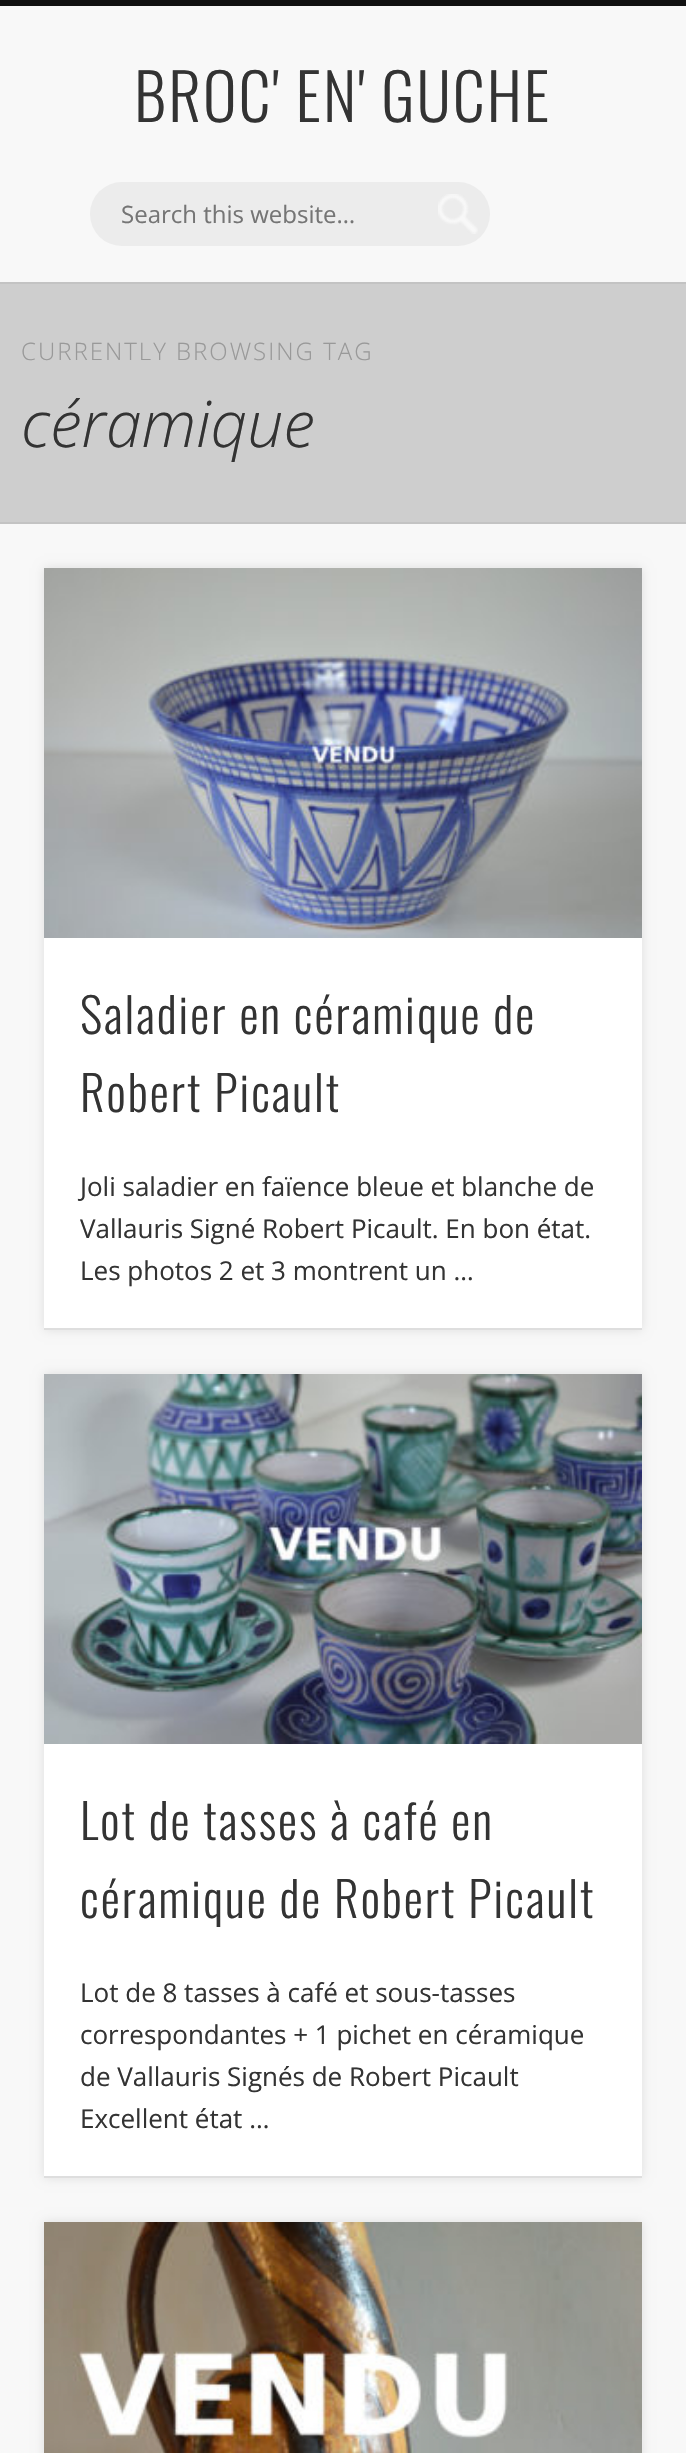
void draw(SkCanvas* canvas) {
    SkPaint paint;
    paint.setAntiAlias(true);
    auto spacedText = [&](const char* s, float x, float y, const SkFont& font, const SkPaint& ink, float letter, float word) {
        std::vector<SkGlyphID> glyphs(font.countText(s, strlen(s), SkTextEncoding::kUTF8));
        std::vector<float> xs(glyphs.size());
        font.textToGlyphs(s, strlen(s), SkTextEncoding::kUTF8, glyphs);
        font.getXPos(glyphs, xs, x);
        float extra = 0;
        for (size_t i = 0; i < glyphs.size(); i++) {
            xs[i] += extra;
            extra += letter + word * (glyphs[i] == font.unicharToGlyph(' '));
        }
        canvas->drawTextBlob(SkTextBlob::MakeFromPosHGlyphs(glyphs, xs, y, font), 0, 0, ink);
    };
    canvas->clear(0xFFF8F8F8);
    paint.setColor(0xFF111111);
    canvas->drawRect(SkRect::MakeXYWH(0, 0, 686, 6), paint);
    SkFont font1(fontMgr->matchFamilyStyle("Oswald", SkFontStyle(300, SkFontStyle::kNormal_Width, SkFontStyle::kUpright_Slant)), 64);
    font1.setSubpixel(true);
    paint.setColor(0xFF333333);
    spacedText("BROC' EN' GUCHE", 134, 122, font1, paint, 2, 0);
    paint.setColor(0xFFECECEC);
    canvas->drawRoundRect(SkRect::MakeXYWH(90, 182, 400, 64), 32, 32, paint);
    canvas->drawImageRect(SkImages::DeferredFromEncodedData(SkData::MakeFromFileName("img1.png")), SkRect::MakeXYWH(438, 194, 40, 40), SkSamplingOptions());
    SkFont font2(fontMgr->matchFamilyStyle("Open Sans", SkFontStyle::Normal()), 24);
    font2.setSubpixel(true);
    paint.setColor(0xFF757575);
    canvas->drawString("Search this website…", 121, 223, font2, paint);
    paint.setColor(0xFFCECECE);
    canvas->drawRect(SkRect::MakeXYWH(0, 284, 686, 238), paint);
    paint.setColor(0xFFC3C3C3);
    canvas->drawRect(SkRect::MakeXYWH(0, 282, 686, 2), paint);
    canvas->drawRect(SkRect::MakeXYWH(0, 522, 686, 2), paint);
    SkFont font3(fontMgr->matchFamilyStyle("Open Sans", SkFontStyle(300, SkFontStyle::kNormal_Width, SkFontStyle::kUpright_Slant)), 24);
    font3.setSubpixel(true);
    paint.setColor(0xFF999999);
    spacedText("CURRENTLY BROWSING TAG", 21, 360, font3, paint, 2, 0);
    SkFont font4(fontMgr->matchFamilyStyle("Open Sans", SkFontStyle(300, SkFontStyle::kNormal_Width, SkFontStyle::kItalic_Slant)), 64);
    font4.setSubpixel(true);
    paint.setColor(0xFF333333);
    canvas->drawString("céramique", 21, 447, font4, paint);
    paint.setColor(0x1A000000);
    paint.setMaskFilter(SkMaskFilter::MakeBlur(kNormal_SkBlurStyle, 5));
    canvas->drawRect(SkRect::MakeXYWH(44, 568, 598, 762), paint);
    paint.setMaskFilter(nullptr);
    paint.setColor(0xFFFFFFFF);
    canvas->drawRect(SkRect::MakeXYWH(44, 938, 598, 390), paint);
    paint.setColor(0xFFDEDEDE);
    canvas->drawRect(SkRect::MakeXYWH(44, 1328, 598, 2), paint);
    canvas->drawImageRect(SkImages::DeferredFromEncodedData(SkData::MakeFromFileName("img2.png")), SkRect::MakeXYWH(44, 568, 598, 370), SkSamplingOptions());
    SkFont font5(fontMgr->matchFamilyStyle("Oswald", SkFontStyle(300, SkFontStyle::kNormal_Width, SkFontStyle::kUpright_Slant)), 48);
    font5.setSubpixel(true);
    paint.setColor(0xFF333333);
    spacedText("Saladier en céramique de", 80, 1034, font5, paint, 2, 0);
    spacedText("Robert Picault", 80, 1112, font5, paint, 2, 0);
    SkFont font6(fontMgr->matchFamilyStyle("Open Sans", SkFontStyle::Normal()), 26);
    font6.setSubpixel(true);
    canvas->drawString("Joli saladier en faïence bleue et blanche de", 80, 1196, font6, paint);
    canvas->drawString("Vallauris Signé Robert Picault. En bon état.", 80, 1238, font6, paint);
    canvas->drawString("Les photos 2 et 3 montrent un …", 80, 1280, font6, paint);
    paint.setColor(0x1A000000);
    paint.setMaskFilter(SkMaskFilter::MakeBlur(kNormal_SkBlurStyle, 5));
    canvas->drawRect(SkRect::MakeXYWH(44, 1374, 598, 804), paint);
    paint.setMaskFilter(nullptr);
    paint.setColor(0xFFFFFFFF);
    canvas->drawRect(SkRect::MakeXYWH(44, 1744, 598, 432), paint);
    paint.setColor(0xFFDEDEDE);
    canvas->drawRect(SkRect::MakeXYWH(44, 2176, 598, 2), paint);
    canvas->drawImageRect(SkImages::DeferredFromEncodedData(SkData::MakeFromFileName("img3.png")), SkRect::MakeXYWH(44, 1374, 598, 370), SkSamplingOptions());
    paint.setColor(0xFF333333);
    spacedText("Lot de tasses à café en", 80, 1840, font5, paint, 2, 0);
    spacedText("céramique de Robert Picault", 80, 1918, font5, paint, 2, 0);
    canvas->drawString("Lot de 8 tasses à café et sous-tasses", 80, 2002, font6, paint);
    canvas->drawString("correspondantes + 1 pichet en céramique", 80, 2044, font6, paint);
    canvas->drawString("de Vallauris Signés de Robert Picault", 80, 2086, font6, paint);
    canvas->drawString("Excellent état …", 80, 2128, font6, paint);
    paint.setColor(0x1A000000);
    paint.setMaskFilter(SkMaskFilter::MakeBlur(kNormal_SkBlurStyle, 5));
    canvas->drawRect(SkRect::MakeXYWH(44, 2222, 598, 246), paint);
    paint.setMaskFilter(nullptr);
    canvas->drawImageRect(SkImages::DeferredFromEncodedData(SkData::MakeFromFileName("img4.png")), SkRect::MakeXYWH(44, 2222, 598, 231), SkSamplingOptions());
}
